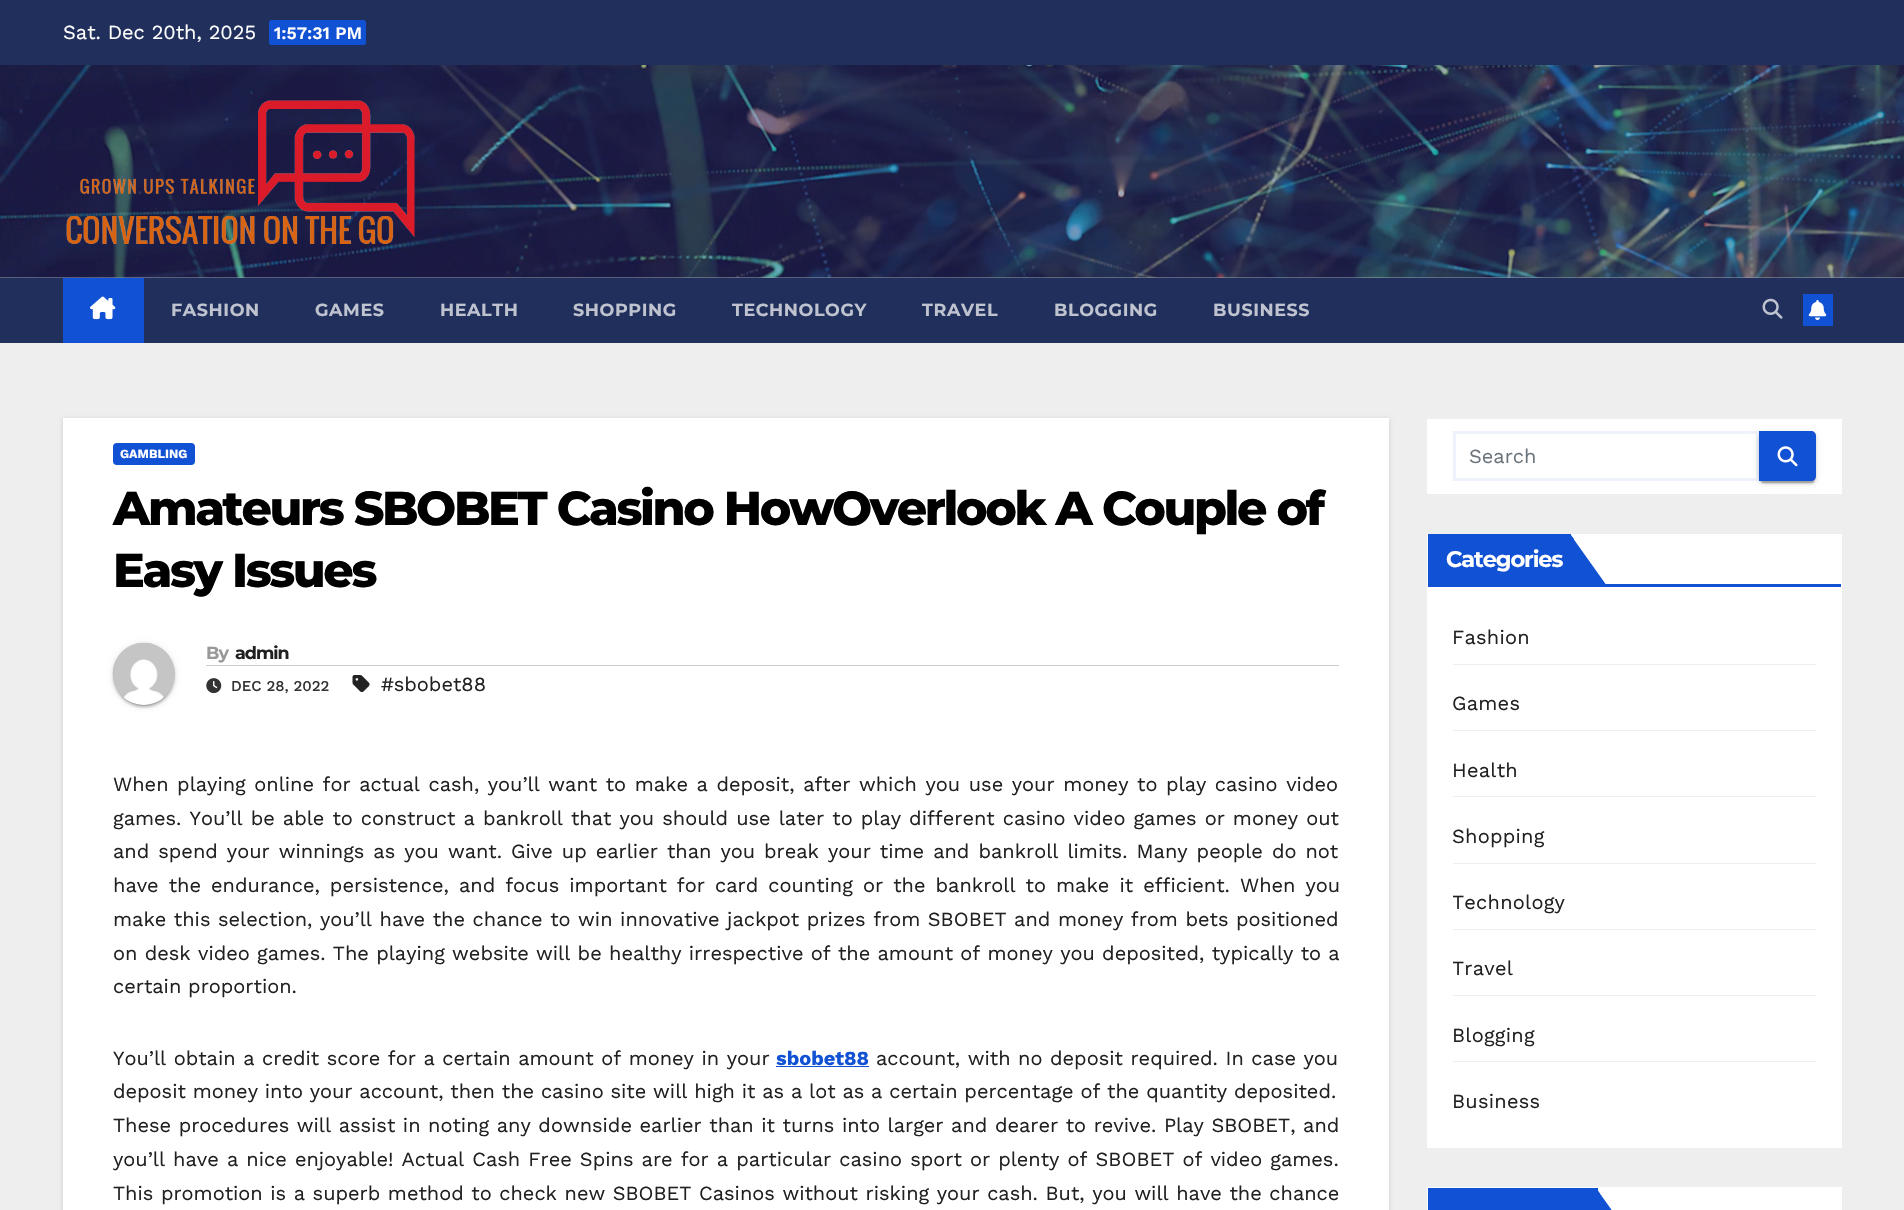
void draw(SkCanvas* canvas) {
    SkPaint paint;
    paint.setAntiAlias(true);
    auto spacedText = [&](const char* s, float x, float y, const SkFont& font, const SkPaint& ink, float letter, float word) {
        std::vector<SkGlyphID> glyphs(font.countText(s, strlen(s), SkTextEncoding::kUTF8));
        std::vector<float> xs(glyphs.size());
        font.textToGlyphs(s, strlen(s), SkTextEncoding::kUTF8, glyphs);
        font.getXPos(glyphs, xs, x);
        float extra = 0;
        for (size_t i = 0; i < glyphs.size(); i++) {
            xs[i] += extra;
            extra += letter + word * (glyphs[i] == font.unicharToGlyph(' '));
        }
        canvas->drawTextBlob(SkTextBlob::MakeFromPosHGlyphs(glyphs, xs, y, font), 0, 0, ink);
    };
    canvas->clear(0xFFEEEEEE);
    paint.setColor(0xFF9CA2B3);
    canvas->drawRect(SkRect::MakeXYWH(0, 277, 1904, 1), paint);
    paint.setColor(0xFF202F5B);
    canvas->drawRect(SkRect::MakeXYWH(0, 0, 1904, 65), paint);
    SkFont font1(fontMgr->matchFamilyStyle("Work Sans", SkFontStyle::Normal()), 20);
    font1.setSubpixel(true);
    paint.setColor(0xFFFFFFFF);
    canvas->drawString("Sat. Dec 20th, 2025", 63, 39, font1, paint);
    paint.setColor(0xFF1151D3);
    canvas->drawRoundRect(SkRect::MakeXYWH(269, 20, 97, 25), 2.5f, 2.5f, paint);
    SkFont font2(fontMgr->matchFamilyStyle("Work Sans", SkFontStyle(600, SkFontStyle::kNormal_Width, SkFontStyle::kUpright_Slant)), 17.5f);
    font2.setSubpixel(true);
    paint.setColor(0xFFFFFFFF);
    canvas->drawString("1:57:31 PM", 274, 39, font2, paint);
    canvas->drawImageRect(SkImages::DeferredFromEncodedData(SkData::MakeFromFileName("img1.png")), SkRect::MakeXYWH(0, 65, 1904, 213), SkSamplingOptions());
    canvas->drawImageRect(SkImages::DeferredFromEncodedData(SkData::MakeFromFileName("img2.png")), SkRect::MakeXYWH(66, 100, 349, 144), SkSamplingOptions());
    paint.setColor(0xFF202F5B);
    canvas->drawRect(SkRect::MakeXYWH(0, 278, 1904, 65), paint);
    paint.setColor(0xFF1151D3);
    canvas->drawRect(SkRect::MakeXYWH(63, 278, 81, 65), paint);
    canvas->drawImageRect(SkImages::DeferredFromEncodedData(SkData::MakeFromFileName("img3.png")), SkRect::MakeXYWH(90, 296, 26, 24), SkSamplingOptions());
    SkFont font3(fontMgr->matchFamilyStyle("Montserrat", SkFontStyle::Bold()), 17.5f);
    font3.setSubpixel(true);
    paint.setColor(0xFFBEC3CF);
    spacedText("FASHION", 171, 316, font3, paint, 0.6f, 0);
    spacedText("GAMES", 315, 316, font3, paint, 0.6f, 0);
    spacedText("HEALTH", 440, 316, font3, paint, 0.6f, 0);
    spacedText("SHOPPING", 573, 316, font3, paint, 0.6f, 0);
    spacedText("TECHNOLOGY", 732, 316, font3, paint, 0.6f, 0);
    spacedText("TRAVEL", 922, 316, font3, paint, 0.6f, 0);
    spacedText("BLOGGING", 1054, 316, font3, paint, 0.6f, 0);
    spacedText("BUSINESS", 1213, 316, font3, paint, 0.6f, 0);
    canvas->drawImageRect(SkImages::DeferredFromEncodedData(SkData::MakeFromFileName("img4.png")), SkRect::MakeXYWH(1762, 298, 21, 21), SkSamplingOptions());
    paint.setColor(0xFF1151D3);
    canvas->drawRect(SkRect::MakeXYWH(1803, 294, 30, 32), paint);
    canvas->drawImageRect(SkImages::DeferredFromEncodedData(SkData::MakeFromFileName("img5.png")), SkRect::MakeXYWH(1808, 300, 19, 20), SkSamplingOptions());
    paint.setColor(0x26000000);
    paint.setMaskFilter(SkMaskFilter::MakeBlur(kNormal_SkBlurStyle, 2));
    canvas->drawRect(SkRect::MakeXYWH(63, 419, 1326, 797), paint);
    paint.setMaskFilter(nullptr);
    paint.setColor(0xFFFFFFFF);
    canvas->drawRect(SkRect::MakeXYWH(63, 418, 1326, 792), paint);
    paint.setColor(0xFF1151D3);
    canvas->drawRoundRect(SkRect::MakeXYWH(113, 443, 82, 22), 4, 4, paint);
    SkFont font4(fontMgr->matchFamilyStyle("Work Sans", SkFontStyle::Bold()), 12.5f);
    font4.setSubpixel(true);
    paint.setColor(0xFFFFFFFF);
    canvas->drawString("GAMBLING", 120, 458, font4, paint);
    SkFont font5(fontMgr->matchFamilyStyle("Montserrat", SkFontStyle(800, SkFontStyle::kNormal_Width, SkFontStyle::kUpright_Slant)), 47.5f);
    font5.setSubpixel(true);
    paint.setColor(0xFF000000);
    spacedText("Amateurs SBOBET Casino HowOverlook A Couple of", 113, 525, font5, paint, -2.4f, 0);
    spacedText("Easy Issues", 113, 587, font5, paint, -2.4f, 0);
    paint.setColor(0x1F000000);
    paint.setMaskFilter(SkMaskFilter::MakeBlur(kNormal_SkBlurStyle, 3));
    canvas->drawRoundRect(SkRect::MakeXYWH(113, 644, 62, 62), 31, 31, paint);
    paint.setMaskFilter(nullptr);
    paint.setColor(0x33000000);
    paint.setMaskFilter(SkMaskFilter::MakeBlur(kNormal_SkBlurStyle, 0.5f));
    canvas->drawRoundRect(SkRect::MakeXYWH(115, 649, 58, 57), 28.5f, 28.5f, paint);
    paint.setMaskFilter(nullptr);
    paint.setColor(0x24000000);
    paint.setMaskFilter(SkMaskFilter::MakeBlur(kNormal_SkBlurStyle, 1));
    canvas->drawRoundRect(SkRect::MakeXYWH(113, 645, 62, 63), 31, 31, paint);
    paint.setMaskFilter(nullptr);
    canvas->drawImageRect(SkImages::DeferredFromEncodedData(SkData::MakeFromFileName("img6.png")), SkRect::MakeXYWH(112, 642, 63, 63), SkSamplingOptions());
    paint.setColor(0xFFCCCCCC);
    canvas->drawRect(SkRect::MakeXYWH(206, 665, 1133, 1), paint);
    paint.setColor(0xFF999999);
    spacedText("By", 206, 659, font3, paint, -1, 0);
    paint.setColor(0xFF212121);
    spacedText("admin", 235, 659, font3, paint, -1, 0);
    canvas->drawImageRect(SkImages::DeferredFromEncodedData(SkData::MakeFromFileName("img7.png")), SkRect::MakeXYWH(206, 678, 16, 16), SkSamplingOptions());
    SkFont font6(fontMgr->matchFamilyStyle("Work Sans", SkFontStyle(500, SkFontStyle::kNormal_Width, SkFontStyle::kUpright_Slant)), 15);
    font6.setSubpixel(true);
    paint.setColor(0xFF333333);
    canvas->drawString("DEC 28, 2022", 231, 691, font6, paint);
    canvas->drawImageRect(SkImages::DeferredFromEncodedData(SkData::MakeFromFileName("img8.png")), SkRect::MakeXYWH(352, 675, 18, 18), SkSamplingOptions());
    paint.setColor(0xFF212121);
    canvas->drawString("#sbobet88", 381, 691, font1, paint);
    spacedText("When playing online for actual cash, you’ll want to make a deposit, after which you use your money to play casino video", 113, 791, font1, paint, 0, 1.75f);
    spacedText("games. You’ll be able to construct a bankroll that you should use later to play different casino video games or money out", 113, 825, font1, paint, 0, 1.25f);
    spacedText("and spend your winnings as you want. Give up earlier than you break your time and bankroll limits. Many people do not", 113, 858, font1, paint, 0, 2.2f);
    spacedText("have the endurance, persistence, and focus important for card counting or the bankroll to make it efficient. When you", 113, 892, font1, paint, 0, 3.25f);
    spacedText("make this selection, you’ll have the chance to win innovative jackpot prizes from SBOBET and money from bets positioned", 113, 926, font1, paint, 0, 0.75f);
    spacedText("on desk video games. The playing website will be healthy irrespective of the amount of money you deposited, typically to a", 113, 960, font1, paint, 0, 0.5f);
    canvas->drawString("certain proportion.", 113, 993, font1, paint);
    spacedText("You’ll obtain a credit score for a certain amount of money in your", 113, 1065, font1, paint, 0, 0.75f);
    SkFont font7(fontMgr->matchFamilyStyle("Work Sans", SkFontStyle::Bold()), 20);
    font7.setSubpixel(true);
    paint.setColor(0xFF1151D3);
    canvas->drawString("sbobet88", 776, 1065, font7, paint);
    canvas->drawRect(SkRect::MakeXYWH(776, 1066, 93, 1), paint);
    paint.setColor(0xFF212121);
    spacedText("account, with no deposit required. In case you", 876, 1065, font1, paint, 0, 0.75f);
    canvas->drawString("deposit money into your account, then the casino site will high it as a lot as a certain percentage of the quantity deposited.", 113, 1098, font1, paint);
    spacedText("These procedures will assist in noting any downside earlier than it turns into larger and dearer to revive. Play SBOBET, and", 113, 1132, font1, paint, 0, 0.75f);
    spacedText("you’ll have a nice enjoyable! Actual Cash Free Spins are for a particular casino sport or plenty of SBOBET of video games.", 113, 1166, font1, paint, 0, 1.3f);
    spacedText("This promotion is a superb method to check new SBOBET Casinos without risking your cash. But, you will have the chance", 113, 1200, font1, paint, 0, 0.75f);
    paint.setColor(0xFFFFFFFF);
    canvas->drawRect(SkRect::MakeXYWH(1427, 419, 415, 75), paint);
    paint.setStyle(SkPaint::kStroke_Style);
    paint.setStrokeWidth(3);
    paint.setColor(0xFFEEF3FB);
    canvas->drawRect(SkRect::MakeXYWH(1454.5f, 432.5f, 303, 47), paint);
    paint.setStyle(SkPaint::kFill_Style);
    paint.setColor(0xFF6C757D);
    canvas->drawString("Search", 1469, 463, font1, paint);
    paint.setColor(0x1F000000);
    paint.setMaskFilter(SkMaskFilter::MakeBlur(kNormal_SkBlurStyle, 3));
    canvas->drawRoundRect(SkRect::MakeXYWH(1759, 433, 57, 50), 5, 5, paint);
    paint.setMaskFilter(nullptr);
    paint.setColor(0x33000000);
    paint.setMaskFilter(SkMaskFilter::MakeBlur(kNormal_SkBlurStyle, 0.5f));
    canvas->drawRoundRect(SkRect::MakeXYWH(1761, 438, 53, 45), 2.5f, 2.5f, paint);
    paint.setMaskFilter(nullptr);
    paint.setColor(0x24000000);
    paint.setMaskFilter(SkMaskFilter::MakeBlur(kNormal_SkBlurStyle, 1));
    canvas->drawRoundRect(SkRect::MakeXYWH(1759, 434, 57, 50), 5, 5, paint);
    paint.setMaskFilter(nullptr);
    paint.setColor(0xFF1151D3);
    canvas->drawPath(SkPathBuilder().moveTo(1759, 431).lineTo(1811, 431).cubicTo(1814, 431, 1816, 433, 1816, 436).lineTo(1816, 476).cubicTo(1816, 479, 1814, 481, 1811, 481).lineTo(1759, 481).close().detach(), paint);
    canvas->drawImageRect(SkImages::DeferredFromEncodedData(SkData::MakeFromFileName("img9.png")), SkRect::MakeXYWH(1777, 446, 21, 21), SkSamplingOptions());
    paint.setColor(0xFFFFFFFF);
    canvas->drawRect(SkRect::MakeXYWH(1427, 534, 415, 614), paint);
    paint.setColor(0xFF1151D3);
    canvas->drawRect(SkRect::MakeXYWH(1428, 584, 413, 3), paint);
    canvas->drawRect(SkRect::MakeXYWH(1428, 534, 143, 50), paint);
    SkFont font8(fontMgr->matchFamilyStyle("Montserrat", SkFontStyle::Bold()), 22.5f);
    font8.setSubpixel(true);
    paint.setColor(0xFFFFFFFF);
    spacedText("Categories", 1446, 567, font8, paint, -1.1f, 0);
    paint.setColor(0xFF1151D3);
    canvas->drawPath(SkPathBuilder().moveTo(1570, 534).lineTo(1607, 586).lineTo(1570, 586).close().detach(), paint);
    canvas->drawPath(SkPathBuilder().moveTo(1574, 539).lineTo(1574, 582).lineTo(1570, 586).lineTo(1570, 534).close().detach(), paint);
    paint.setColor(0xFFEEEEEE);
    canvas->drawRect(SkRect::MakeXYWH(1453, 664, 363, 1), paint);
    paint.setColor(0xFF212121);
    spacedText("Fashion", 1452, 644, font1, paint, 0.25f, 0);
    paint.setColor(0xFFEEEEEE);
    canvas->drawRect(SkRect::MakeXYWH(1453, 730, 363, 1), paint);
    paint.setColor(0xFF212121);
    spacedText("Games", 1452, 710, font1, paint, 0.25f, 0);
    paint.setColor(0xFFEEEEEE);
    canvas->drawRect(SkRect::MakeXYWH(1453, 796, 363, 1), paint);
    paint.setColor(0xFF212121);
    spacedText("Health", 1452, 777, font1, paint, 0.25f, 0);
    paint.setColor(0xFFEEEEEE);
    canvas->drawRect(SkRect::MakeXYWH(1453, 863, 363, 1), paint);
    paint.setColor(0xFF212121);
    spacedText("Shopping", 1452, 843, font1, paint, 0.25f, 0);
    paint.setColor(0xFFEEEEEE);
    canvas->drawRect(SkRect::MakeXYWH(1453, 929, 363, 1), paint);
    canvas->save();
    canvas->clipRect(SkRect::MakeXYWH(1453, 876, 363, 53));
    paint.setColor(0xFF212121);
    spacedText("Technology", 1452, 909, font1, paint, 0.25f, 0);
    canvas->restore();
    paint.setColor(0xFFEEEEEE);
    canvas->drawRect(SkRect::MakeXYWH(1453, 995, 363, 1), paint);
    canvas->save();
    canvas->clipRect(SkRect::MakeXYWH(1453, 943, 363, 52));
    paint.setColor(0xFF212121);
    spacedText("Travel", 1452, 975, font1, paint, 0.25f, 0);
    canvas->restore();
    paint.setColor(0xFFEEEEEE);
    canvas->drawRect(SkRect::MakeXYWH(1453, 1061, 363, 1), paint);
    paint.setColor(0xFF212121);
    spacedText("Blogging", 1452, 1042, font1, paint, 0.25f, 0);
    spacedText("Business", 1452, 1108, font1, paint, 0.25f, 0);
    paint.setColor(0xFFFFFFFF);
    canvas->drawRect(SkRect::MakeXYWH(1427, 1187, 415, 23), paint);
    paint.setColor(0xFF1151D3);
    canvas->drawRect(SkRect::MakeXYWH(1428, 1188, 170, 22), paint);
    canvas->drawPath(SkPathBuilder().moveTo(1596, 1188).lineTo(1596, 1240).lineTo(1633, 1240).close().detach(), paint);
    canvas->drawPath(SkPathBuilder().moveTo(1596, 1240).lineTo(1600, 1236).lineTo(1600, 1194).lineTo(1596, 1188).close().detach(), paint);
}
